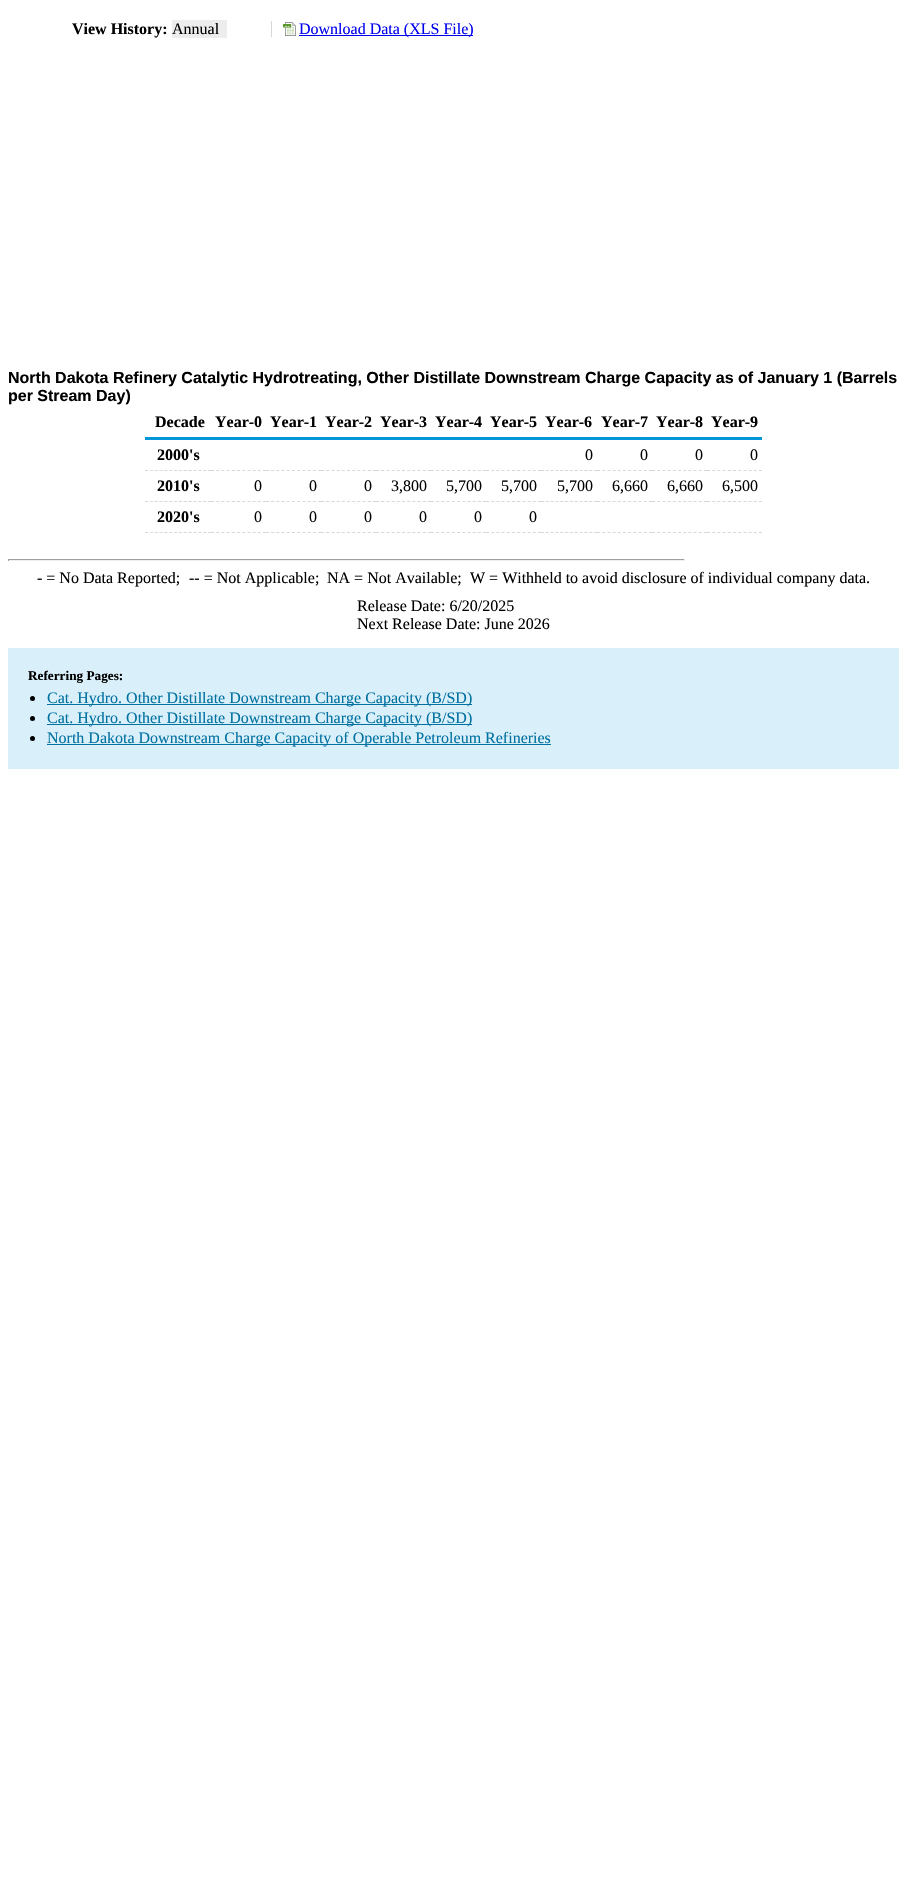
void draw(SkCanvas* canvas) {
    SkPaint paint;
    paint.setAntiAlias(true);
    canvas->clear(0xFFFFFFFF);
    SkFont font1(fontMgr->matchFamilyStyle("Liberation Serif", SkFontStyle::Bold()), 16);
    font1.setSubpixel(true);
    paint.setColor(0xFF000000);
    canvas->drawString("View History:", 72, 34, font1, paint);
    paint.setColor(0xFFEDEDED);
    canvas->drawRect(SkRect::MakeXYWH(172, 20, 55, 18), paint);
    SkFont font2(fontMgr->matchFamilyStyle("Liberation Serif", SkFontStyle::Normal()), 16);
    font2.setSubpixel(true);
    paint.setColor(0xFF000000);
    canvas->drawString("Annual", 172, 34, font2, paint);
    paint.setColor(0xFFD7D7D7);
    canvas->drawRect(SkRect::MakeXYWH(271, 21, 1, 16), paint);
    canvas->drawImageRect(SkImages::DeferredFromEncodedData(SkData::MakeFromFileName("img1.png")), SkRect::MakeXYWH(283, 22, 13, 14), SkSamplingOptions());
    paint.setColor(0xFF0000EE);
    canvas->drawRect(SkRect::MakeXYWH(299, 35, 174, 1), paint);
    canvas->drawString("Download Data (XLS File)", 299, 34, font2, paint);
    SkFont font3(fontMgr->matchFamilyStyle("Liberation Sans", SkFontStyle::Bold()), 16);
    font3.setSubpixel(true);
    paint.setColor(0xFF000000);
    canvas->drawString("North Dakota Refinery Catalytic Hydrotreating, Other Distillate Downstream Charge Capacity as of January 1 (Barrels", 8, 383, font3, paint);
    canvas->drawString("per Stream Day)", 8, 401, font3, paint);
    paint.setColor(0xFF0096D7);
    canvas->drawRect(SkRect::MakeXYWH(145, 437, 617, 3), paint);
    paint.setColor(0xFF000000);
    canvas->drawString("Decade", 155, 427, font1, paint);
    canvas->drawString("Year-0", 215, 427, font1, paint);
    canvas->drawString("Year-1", 270, 427, font1, paint);
    canvas->drawString("Year-2", 325, 427, font1, paint);
    canvas->drawString("Year-3", 380, 427, font1, paint);
    canvas->drawString("Year-4", 435, 427, font1, paint);
    canvas->drawString("Year-5", 490, 427, font1, paint);
    canvas->drawString("Year-6", 545, 427, font1, paint);
    canvas->drawString("Year-7", 601, 427, font1, paint);
    canvas->drawString("Year-8", 656, 427, font1, paint);
    canvas->drawString("Year-9", 711, 427, font1, paint);
    paint.setStyle(SkPaint::kStroke_Style);
    paint.setStrokeWidth(1);
    paint.setColor(0xFFD8D8D8);
    paint.setPathEffect(SkDashPathEffect::Make({{3, 1.85f}}, 0));
    canvas->drawPath(SkPathBuilder().moveTo(145, 470.5f).lineTo(211, 470.5f).detach(), paint);
    paint.setPathEffect(nullptr);
    paint.setStyle(SkPaint::kFill_Style);
    paint.setColor(0xFF000000);
    canvas->drawString("2000's", 157, 460, font1, paint);
    paint.setStyle(SkPaint::kStroke_Style);
    paint.setColor(0xFFD8D8D8);
    paint.setPathEffect(SkDashPathEffect::Make({{3, 1.82f}}, 0));
    canvas->drawPath(SkPathBuilder().moveTo(541, 470.5f).lineTo(597, 470.5f).detach(), paint);
    paint.setPathEffect(nullptr);
    paint.setStyle(SkPaint::kFill_Style);
    paint.setColor(0xFF000000);
    canvas->drawString("0", 585, 460, font2, paint);
    paint.setStyle(SkPaint::kStroke_Style);
    paint.setColor(0xFFD8D8D8);
    paint.setPathEffect(SkDashPathEffect::Make({{3, 2.2f}}, 0));
    canvas->drawPath(SkPathBuilder().moveTo(597, 470.5f).lineTo(652, 470.5f).detach(), paint);
    paint.setPathEffect(nullptr);
    paint.setStyle(SkPaint::kFill_Style);
    paint.setColor(0xFF000000);
    canvas->drawString("0", 640, 460, font2, paint);
    paint.setStyle(SkPaint::kStroke_Style);
    paint.setColor(0xFFD8D8D8);
    paint.setPathEffect(SkDashPathEffect::Make({{3, 2.2f}}, 0));
    canvas->drawPath(SkPathBuilder().moveTo(652, 470.5f).lineTo(707, 470.5f).detach(), paint);
    paint.setPathEffect(nullptr);
    paint.setStyle(SkPaint::kFill_Style);
    paint.setColor(0xFF000000);
    canvas->drawString("0", 695, 460, font2, paint);
    paint.setStyle(SkPaint::kStroke_Style);
    paint.setColor(0xFFD8D8D8);
    paint.setPathEffect(SkDashPathEffect::Make({{3, 2.2f}}, 0));
    canvas->drawPath(SkPathBuilder().moveTo(707, 470.5f).lineTo(762, 470.5f).detach(), paint);
    paint.setPathEffect(nullptr);
    paint.setStyle(SkPaint::kFill_Style);
    paint.setColor(0xFF000000);
    canvas->drawString("0", 750, 460, font2, paint);
    paint.setStyle(SkPaint::kStroke_Style);
    paint.setColor(0xFFD8D8D8);
    paint.setPathEffect(SkDashPathEffect::Make({{3, 2.2f}}, 0));
    canvas->drawPath(SkPathBuilder().moveTo(211, 470.5f).lineTo(266, 470.5f).detach(), paint);
    paint.setPathEffect(nullptr);
    paint.setPathEffect(SkDashPathEffect::Make({{3, 2.2f}}, 0));
    canvas->drawPath(SkPathBuilder().moveTo(266, 470.5f).lineTo(321, 470.5f).detach(), paint);
    paint.setPathEffect(nullptr);
    paint.setPathEffect(SkDashPathEffect::Make({{3, 2.2f}}, 0));
    canvas->drawPath(SkPathBuilder().moveTo(321, 470.5f).lineTo(376, 470.5f).detach(), paint);
    paint.setPathEffect(nullptr);
    paint.setPathEffect(SkDashPathEffect::Make({{3, 2.2f}}, 0));
    canvas->drawPath(SkPathBuilder().moveTo(376, 470.5f).lineTo(431, 470.5f).detach(), paint);
    paint.setPathEffect(nullptr);
    paint.setPathEffect(SkDashPathEffect::Make({{3, 2.2f}}, 0));
    canvas->drawPath(SkPathBuilder().moveTo(431, 470.5f).lineTo(486, 470.5f).detach(), paint);
    paint.setPathEffect(nullptr);
    paint.setPathEffect(SkDashPathEffect::Make({{3, 2.2f}}, 0));
    canvas->drawPath(SkPathBuilder().moveTo(486, 470.5f).lineTo(541, 470.5f).detach(), paint);
    paint.setPathEffect(nullptr);
    paint.setPathEffect(SkDashPathEffect::Make({{3, 1.85f}}, 0));
    canvas->drawPath(SkPathBuilder().moveTo(145, 501.5f).lineTo(211, 501.5f).detach(), paint);
    paint.setPathEffect(nullptr);
    paint.setStyle(SkPaint::kFill_Style);
    paint.setColor(0xFF000000);
    canvas->drawString("2010's", 157, 491, font1, paint);
    paint.setStyle(SkPaint::kStroke_Style);
    paint.setColor(0xFFD8D8D8);
    paint.setPathEffect(SkDashPathEffect::Make({{3, 2.2f}}, 0));
    canvas->drawPath(SkPathBuilder().moveTo(211, 501.5f).lineTo(266, 501.5f).detach(), paint);
    paint.setPathEffect(nullptr);
    paint.setStyle(SkPaint::kFill_Style);
    paint.setColor(0xFF000000);
    canvas->drawString("0", 254, 491, font2, paint);
    paint.setStyle(SkPaint::kStroke_Style);
    paint.setColor(0xFFD8D8D8);
    paint.setPathEffect(SkDashPathEffect::Make({{3, 2.2f}}, 0));
    canvas->drawPath(SkPathBuilder().moveTo(266, 501.5f).lineTo(321, 501.5f).detach(), paint);
    paint.setPathEffect(nullptr);
    paint.setStyle(SkPaint::kFill_Style);
    paint.setColor(0xFF000000);
    canvas->drawString("0", 309, 491, font2, paint);
    paint.setStyle(SkPaint::kStroke_Style);
    paint.setColor(0xFFD8D8D8);
    paint.setPathEffect(SkDashPathEffect::Make({{3, 2.2f}}, 0));
    canvas->drawPath(SkPathBuilder().moveTo(321, 501.5f).lineTo(376, 501.5f).detach(), paint);
    paint.setPathEffect(nullptr);
    paint.setStyle(SkPaint::kFill_Style);
    paint.setColor(0xFF000000);
    canvas->drawString("0", 364, 491, font2, paint);
    paint.setStyle(SkPaint::kStroke_Style);
    paint.setColor(0xFFD8D8D8);
    paint.setPathEffect(SkDashPathEffect::Make({{3, 2.2f}}, 0));
    canvas->drawPath(SkPathBuilder().moveTo(376, 501.5f).lineTo(431, 501.5f).detach(), paint);
    paint.setPathEffect(nullptr);
    paint.setStyle(SkPaint::kFill_Style);
    paint.setColor(0xFF000000);
    canvas->drawString("3,800", 391, 491, font2, paint);
    paint.setStyle(SkPaint::kStroke_Style);
    paint.setColor(0xFFD8D8D8);
    paint.setPathEffect(SkDashPathEffect::Make({{3, 2.2f}}, 0));
    canvas->drawPath(SkPathBuilder().moveTo(431, 501.5f).lineTo(486, 501.5f).detach(), paint);
    paint.setPathEffect(nullptr);
    paint.setStyle(SkPaint::kFill_Style);
    paint.setColor(0xFF000000);
    canvas->drawString("5,700", 446, 491, font2, paint);
    paint.setStyle(SkPaint::kStroke_Style);
    paint.setColor(0xFFD8D8D8);
    paint.setPathEffect(SkDashPathEffect::Make({{3, 2.2f}}, 0));
    canvas->drawPath(SkPathBuilder().moveTo(486, 501.5f).lineTo(541, 501.5f).detach(), paint);
    paint.setPathEffect(nullptr);
    paint.setStyle(SkPaint::kFill_Style);
    paint.setColor(0xFF000000);
    canvas->drawString("5,700", 501, 491, font2, paint);
    paint.setStyle(SkPaint::kStroke_Style);
    paint.setColor(0xFFD8D8D8);
    paint.setPathEffect(SkDashPathEffect::Make({{3, 1.82f}}, 0));
    canvas->drawPath(SkPathBuilder().moveTo(541, 501.5f).lineTo(597, 501.5f).detach(), paint);
    paint.setPathEffect(nullptr);
    paint.setStyle(SkPaint::kFill_Style);
    paint.setColor(0xFF000000);
    canvas->drawString("5,700", 557, 491, font2, paint);
    paint.setStyle(SkPaint::kStroke_Style);
    paint.setColor(0xFFD8D8D8);
    paint.setPathEffect(SkDashPathEffect::Make({{3, 2.2f}}, 0));
    canvas->drawPath(SkPathBuilder().moveTo(597, 501.5f).lineTo(652, 501.5f).detach(), paint);
    paint.setPathEffect(nullptr);
    paint.setStyle(SkPaint::kFill_Style);
    paint.setColor(0xFF000000);
    canvas->drawString("6,660", 612, 491, font2, paint);
    paint.setStyle(SkPaint::kStroke_Style);
    paint.setColor(0xFFD8D8D8);
    paint.setPathEffect(SkDashPathEffect::Make({{3, 2.2f}}, 0));
    canvas->drawPath(SkPathBuilder().moveTo(652, 501.5f).lineTo(707, 501.5f).detach(), paint);
    paint.setPathEffect(nullptr);
    paint.setStyle(SkPaint::kFill_Style);
    paint.setColor(0xFF000000);
    canvas->drawString("6,660", 667, 491, font2, paint);
    paint.setStyle(SkPaint::kStroke_Style);
    paint.setColor(0xFFD8D8D8);
    paint.setPathEffect(SkDashPathEffect::Make({{3, 2.2f}}, 0));
    canvas->drawPath(SkPathBuilder().moveTo(707, 501.5f).lineTo(762, 501.5f).detach(), paint);
    paint.setPathEffect(nullptr);
    paint.setStyle(SkPaint::kFill_Style);
    paint.setColor(0xFF000000);
    canvas->drawString("6,500", 722, 491, font2, paint);
    paint.setStyle(SkPaint::kStroke_Style);
    paint.setColor(0xFFD8D8D8);
    paint.setPathEffect(SkDashPathEffect::Make({{3, 1.85f}}, 0));
    canvas->drawPath(SkPathBuilder().moveTo(145, 532.5f).lineTo(211, 532.5f).detach(), paint);
    paint.setPathEffect(nullptr);
    paint.setStyle(SkPaint::kFill_Style);
    paint.setColor(0xFF000000);
    canvas->drawString("2020's", 157, 522, font1, paint);
    paint.setStyle(SkPaint::kStroke_Style);
    paint.setColor(0xFFD8D8D8);
    paint.setPathEffect(SkDashPathEffect::Make({{3, 2.2f}}, 0));
    canvas->drawPath(SkPathBuilder().moveTo(211, 532.5f).lineTo(266, 532.5f).detach(), paint);
    paint.setPathEffect(nullptr);
    paint.setStyle(SkPaint::kFill_Style);
    paint.setColor(0xFF000000);
    canvas->drawString("0", 254, 522, font2, paint);
    paint.setStyle(SkPaint::kStroke_Style);
    paint.setColor(0xFFD8D8D8);
    paint.setPathEffect(SkDashPathEffect::Make({{3, 2.2f}}, 0));
    canvas->drawPath(SkPathBuilder().moveTo(266, 532.5f).lineTo(321, 532.5f).detach(), paint);
    paint.setPathEffect(nullptr);
    paint.setStyle(SkPaint::kFill_Style);
    paint.setColor(0xFF000000);
    canvas->drawString("0", 309, 522, font2, paint);
    paint.setStyle(SkPaint::kStroke_Style);
    paint.setColor(0xFFD8D8D8);
    paint.setPathEffect(SkDashPathEffect::Make({{3, 2.2f}}, 0));
    canvas->drawPath(SkPathBuilder().moveTo(321, 532.5f).lineTo(376, 532.5f).detach(), paint);
    paint.setPathEffect(nullptr);
    paint.setStyle(SkPaint::kFill_Style);
    paint.setColor(0xFF000000);
    canvas->drawString("0", 364, 522, font2, paint);
    paint.setStyle(SkPaint::kStroke_Style);
    paint.setColor(0xFFD8D8D8);
    paint.setPathEffect(SkDashPathEffect::Make({{3, 2.2f}}, 0));
    canvas->drawPath(SkPathBuilder().moveTo(376, 532.5f).lineTo(431, 532.5f).detach(), paint);
    paint.setPathEffect(nullptr);
    paint.setStyle(SkPaint::kFill_Style);
    paint.setColor(0xFF000000);
    canvas->drawString("0", 419, 522, font2, paint);
    paint.setStyle(SkPaint::kStroke_Style);
    paint.setColor(0xFFD8D8D8);
    paint.setPathEffect(SkDashPathEffect::Make({{3, 2.2f}}, 0));
    canvas->drawPath(SkPathBuilder().moveTo(431, 532.5f).lineTo(486, 532.5f).detach(), paint);
    paint.setPathEffect(nullptr);
    paint.setStyle(SkPaint::kFill_Style);
    paint.setColor(0xFF000000);
    canvas->drawString("0", 474, 522, font2, paint);
    paint.setStyle(SkPaint::kStroke_Style);
    paint.setColor(0xFFD8D8D8);
    paint.setPathEffect(SkDashPathEffect::Make({{3, 2.2f}}, 0));
    canvas->drawPath(SkPathBuilder().moveTo(486, 532.5f).lineTo(541, 532.5f).detach(), paint);
    paint.setPathEffect(nullptr);
    paint.setStyle(SkPaint::kFill_Style);
    paint.setColor(0xFF000000);
    canvas->drawString("0", 529, 522, font2, paint);
    paint.setStyle(SkPaint::kStroke_Style);
    paint.setColor(0xFFD8D8D8);
    paint.setPathEffect(SkDashPathEffect::Make({{3, 1.82f}}, 0));
    canvas->drawPath(SkPathBuilder().moveTo(541, 532.5f).lineTo(597, 532.5f).detach(), paint);
    paint.setPathEffect(nullptr);
    paint.setPathEffect(SkDashPathEffect::Make({{3, 2.2f}}, 0));
    canvas->drawPath(SkPathBuilder().moveTo(597, 532.5f).lineTo(652, 532.5f).detach(), paint);
    paint.setPathEffect(nullptr);
    paint.setPathEffect(SkDashPathEffect::Make({{3, 2.2f}}, 0));
    canvas->drawPath(SkPathBuilder().moveTo(652, 532.5f).lineTo(707, 532.5f).detach(), paint);
    paint.setPathEffect(nullptr);
    paint.setPathEffect(SkDashPathEffect::Make({{3, 2.2f}}, 0));
    canvas->drawPath(SkPathBuilder().moveTo(707, 532.5f).lineTo(762, 532.5f).detach(), paint);
    paint.setPathEffect(nullptr);
    paint.setStyle(SkPaint::kFill_Style);
    paint.setColor(0xFF9F9F9F);
    canvas->drawRect(SkRect::MakeXYWH(8, 559, 677, 1), paint);
    paint.setColor(0xFFEEEEEE);
    canvas->drawRect(SkRect::MakeXYWH(684, 559, 1, 2), paint);
    canvas->drawRect(SkRect::MakeXYWH(8, 560, 677, 1), paint);
    paint.setColor(0xFF9F9F9F);
    canvas->drawRect(SkRect::MakeXYWH(8, 559, 1, 2), paint);
    paint.setColor(0xFF000000);
    canvas->drawString("- = No Data Reported;", 37, 583, font2, paint);
    canvas->drawString("-- = Not Applicable;", 189, 583, font2, paint);
    canvas->drawString("NA = Not Available;", 327, 583, font2, paint);
    canvas->drawString("W = Withheld to avoid disclosure of individual company data.", 470, 583, font2, paint);
    canvas->drawString("Release Date: 6/20/2025", 357, 611, font2, paint);
    canvas->drawString("Next Release Date: June 2026", 357, 629, font2, paint);
    paint.setColor(0xFFD9EFF9);
    canvas->drawRect(SkRect::MakeXYWH(8, 648, 891, 121), paint);
    SkFont font4(fontMgr->matchFamilyStyle("Liberation Serif", SkFontStyle::Bold()), 13.25f);
    font4.setSubpixel(true);
    paint.setColor(0xFF000000);
    canvas->drawString("Referring Pages:", 28, 680, font4, paint);
    canvas->drawCircle(32.5f, 698.5f, 2.5f, paint);
    paint.setColor(0xFF0071A1);
    canvas->drawRect(SkRect::MakeXYWH(47, 704, 425, 1), paint);
    canvas->drawString("Cat. Hydro. Other Distillate Downstream Charge Capacity (B/SD)", 47, 703, font2, paint);
    paint.setColor(0xFF000000);
    canvas->drawCircle(32.5f, 718.5f, 2.5f, paint);
    paint.setColor(0xFF0071A1);
    canvas->drawRect(SkRect::MakeXYWH(47, 724, 425, 1), paint);
    canvas->drawString("Cat. Hydro. Other Distillate Downstream Charge Capacity (B/SD)", 47, 723, font2, paint);
    paint.setColor(0xFF000000);
    canvas->drawCircle(32.5f, 738.5f, 2.5f, paint);
    paint.setColor(0xFF0071A1);
    canvas->drawRect(SkRect::MakeXYWH(47, 744, 504, 1), paint);
    canvas->drawString("North Dakota Downstream Charge Capacity of Operable Petroleum Refineries", 47, 743, font2, paint);
}
